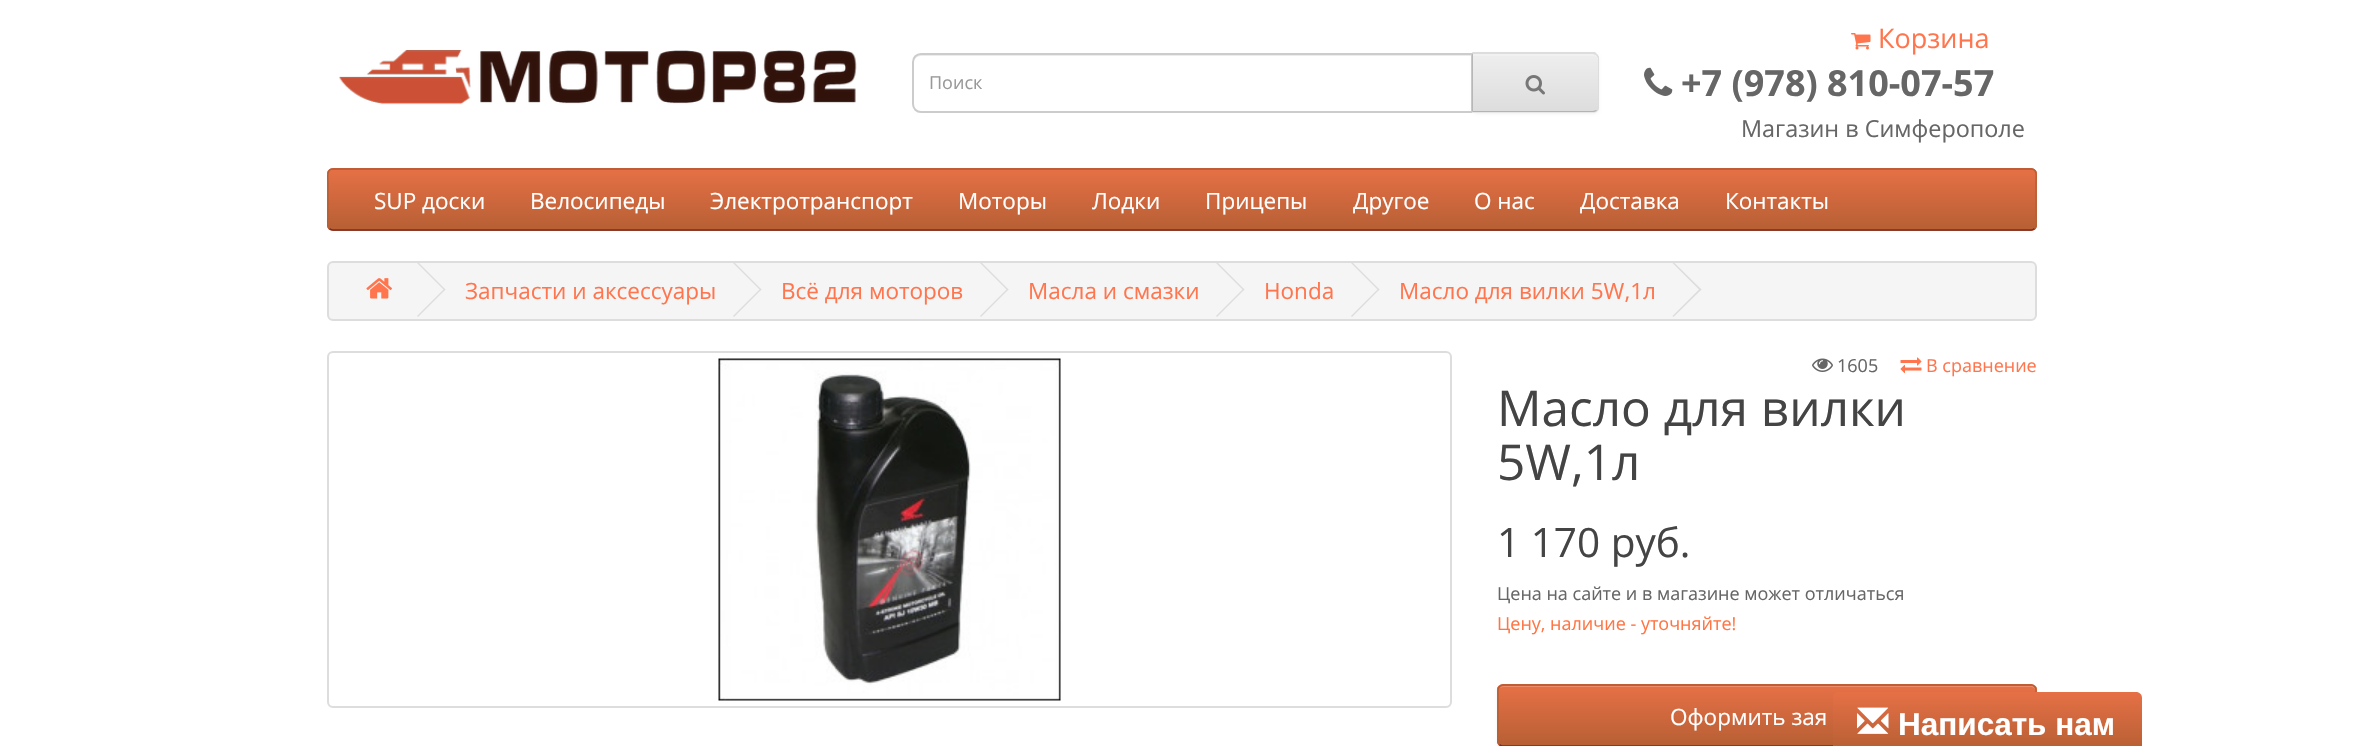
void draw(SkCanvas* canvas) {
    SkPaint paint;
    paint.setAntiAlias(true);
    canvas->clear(0xFFFFFFFF);
    canvas->drawImageRect(SkImages::DeferredFromEncodedData(SkData::MakeFromFileName("img1.png")), SkRect::MakeXYWH(339, 50, 518, 55), SkSamplingOptions());
    paint.setColor(0xFFECECEC);
    canvas->drawPath(SkPathBuilder().moveTo(921, 56).lineTo(1472, 56).lineTo(1472, 54).lineTo(922, 54).cubicTo(917, 54, 914, 58, 914, 63).cubicTo(914, 59, 917, 56, 921, 56).close().detach(), paint);
    paint.setStyle(SkPaint::kStroke_Style);
    paint.setStrokeWidth(2);
    paint.setColor(0xFFCCCCCC);
    canvas->drawPath(SkPathBuilder().moveTo(921, 54).lineTo(1472, 54).lineTo(1472, 112).lineTo(921, 112).cubicTo(916.5f, 112, 913, 108.5f, 913, 104).lineTo(913, 62).cubicTo(913, 57.5f, 916.5f, 54, 921, 54).close().detach(), paint);
    SkFont font1(fontMgr->matchFamilyStyle("Open Sans", SkFontStyle::Normal()), 18);
    font1.setSubpixel(true);
    paint.setStyle(SkPaint::kFill_Style);
    paint.setColor(0xFF999999);
    canvas->drawString("Поиск", 929, 89, font1, paint);
    paint.setColor(0x0D000000);
    paint.setMaskFilter(SkMaskFilter::MakeBlur(kNormal_SkBlurStyle, 1.5f));
    canvas->drawRoundRect(SkRect::MakeXYWH(1472, 54, 127, 60), 6, 6, paint);
    paint.setMaskFilter(nullptr);
    paint.setColor(0xFFE7E7E7);
    canvas->drawPath(SkPathBuilder().moveTo(1472, 53).lineTo(1593, 53).cubicTo(1596.5f, 53, 1599, 55.5f, 1599, 59).lineTo(1599, 107).cubicTo(1599, 110.5f, 1596.5f, 113, 1593, 113).lineTo(1472, 113).close().detach(), paint);
    canvas->save();
    canvas->clipPath(SkPathBuilder().moveTo(1472, 53).lineTo(1593, 53).cubicTo(1596.5f, 53, 1599, 55.5f, 1599, 59).lineTo(1599, 107).cubicTo(1599, 110.5f, 1596.5f, 113, 1593, 113).lineTo(1472, 113).close().detach(), true);
    {
        const SkColor colors[] = {0xFFEEEEEE, 0xFFDDDDDD};
        const float stops[] = {0, 1};
        const SkPoint ends[] = {{1535, 54}, {1535, 111}};
        paint.setShader(SkGradientShader::MakeLinear(ends, colors, stops, 2, SkTileMode::kClamp));
        paint.setAlpha(255);
    }
    canvas->drawRect(SkRect::MakeXYWH(1473, 54, 126, 57), paint);
    canvas->restore();
    paint.setShader(nullptr);
    paint.setColor(0xFFF1F1F1);
    canvas->drawPath(SkPathBuilder().moveTo(1473, 56).lineTo(1593, 56).cubicTo(1595, 56, 1598, 58, 1598, 60).lineTo(1598, 59).cubicTo(1598, 56, 1596, 54, 1593, 54).lineTo(1473, 54).close().detach(), paint);
    paint.setColor(0xFFDDDDDD);
    canvas->drawPath(SkPathBuilder().moveTo(1473, 54).lineTo(1472, 52).lineTo(1595, 52).lineTo(1597, 54).lineTo(1596, 55).lineTo(1593, 54).close().detach(), paint);
    canvas->drawPath(SkPathBuilder().moveTo(1599, 106).lineTo(1599, 58).cubicTo(1599, 57, 1598, 55, 1597, 54).lineTo(1596, 55).lineTo(1598, 58).lineTo(1598, 107).lineTo(1596, 110).lineTo(1597, 111).cubicTo(1598, 110, 1599, 108, 1599, 106).close().detach(), paint);
    paint.setColor(0xFFB3B3B3);
    canvas->drawPath(SkPathBuilder().moveTo(1597, 111).lineTo(1594, 112).lineTo(1472, 112).lineTo(1473, 111).lineTo(1593, 111).lineTo(1596, 110).close().detach(), paint);
    paint.setColor(0xFFB7B7B7);
    canvas->drawPath(SkPathBuilder().moveTo(1473, 54).lineTo(1472, 53).lineTo(1472, 112).lineTo(1473, 111).close().detach(), paint);
    canvas->drawImageRect(SkImages::DeferredFromEncodedData(SkData::MakeFromFileName("img2.png")), SkRect::MakeXYWH(1525, 75, 20, 20), SkSamplingOptions());
    canvas->drawImageRect(SkImages::DeferredFromEncodedData(SkData::MakeFromFileName("img3.png")), SkRect::MakeXYWH(1851, 33, 20, 17), SkSamplingOptions());
    SkFont font2(fontMgr->matchFamilyStyle("Open Sans", SkFontStyle::Normal()), 27);
    font2.setSubpixel(true);
    paint.setColor(0xFFFF764E);
    canvas->drawString("Корзина", 1878, 48, font2, paint);
    canvas->drawImageRect(SkImages::DeferredFromEncodedData(SkData::MakeFromFileName("img4.png")), SkRect::MakeXYWH(1644, 67, 29, 29), SkSamplingOptions());
    SkFont font3(fontMgr->matchFamilyStyle("Open Sans", SkFontStyle::Bold()), 36);
    font3.setSubpixel(true);
    paint.setColor(0xFF666666);
    canvas->drawString("+7 (978) 810-07-57", 1681, 96, font3, paint);
    SkFont font4(fontMgr->matchFamilyStyle("Open Sans", SkFontStyle::Normal()), 23.4f);
    font4.setSubpixel(true);
    canvas->drawString("Магазин в Симферополе", 1741, 137, font4, paint);
    paint.setColor(0x0D000000);
    paint.setMaskFilter(SkMaskFilter::MakeBlur(kNormal_SkBlurStyle, 1.5f));
    canvas->drawRoundRect(SkRect::MakeXYWH(1497, 686, 540, 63), 6, 6, paint);
    paint.setMaskFilter(nullptr);
    paint.setColor(0xFFD85640);
    canvas->drawRoundRect(SkRect::MakeXYWH(1497, 684, 540, 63), 6, 6, paint);
    canvas->save();
    canvas->clipPath(SkPathBuilder().moveTo(1503, 684).lineTo(2031, 684).cubicTo(2034.5f, 684, 2037, 686.5f, 2037, 690).lineTo(2037, 741).cubicTo(2037, 744.5f, 2034.5f, 747, 2031, 747).lineTo(1503, 747).cubicTo(1499.5f, 747, 1497, 744.5f, 1497, 741).lineTo(1497, 690).cubicTo(1497, 686.5f, 1499.5f, 684, 1503, 684).close().detach(), true);
    {
        const SkColor colors[] = {0xFFE67046, 0xFFB75F34};
        const float stops[] = {0, 1};
        const SkPoint ends[] = {{1767, 686}, {1767, 746}};
        paint.setShader(SkGradientShader::MakeLinear(ends, colors, stops, 2, SkTileMode::kClamp));
        paint.setAlpha(255);
    }
    canvas->drawRect(SkRect::MakeXYWH(1497, 686, 540, 60), paint);
    canvas->restore();
    paint.setStyle(SkPaint::kStroke_Style);
    paint.setStrokeWidth(1.5f);
    paint.setShader(nullptr);
    paint.setColor(0xFF703224);
    canvas->drawPath(SkPathBuilder().moveTo(2034.5f, 744.5f).cubicTo(2033.5f, 745.5f, 2032.5f, 746, 2031, 746).lineTo(1503, 746).cubicTo(1501.5f, 746, 1500.5f, 745.5f, 1499.5f, 744.5f).detach(), paint);
    paint.setStyle(SkPaint::kFill_Style);
    paint.setColor(0x33FFFFFF);
    canvas->drawPath(SkPathBuilder().moveTo(1503, 687).lineTo(2031, 687).cubicTo(2033, 687, 2036, 689, 2036, 692).lineTo(2036, 691).cubicTo(2036, 688, 2034, 686, 2031, 686).lineTo(1504, 686).cubicTo(1502, 686, 1501, 687, 1500, 688).close().detach(), paint);
    paint.setStyle(SkPaint::kStroke_Style);
    paint.setColor(0xFFB75F34);
    canvas->drawPath(SkPathBuilder().moveTo(1499.5f, 744.5f).cubicTo(1498.5f, 743.5f, 1498, 742.5f, 1498, 741).lineTo(1498, 690).cubicTo(1498, 688.5f, 1498.5f, 687.5f, 1499.5f, 686.5f).cubicTo(1500.5f, 685.5f, 1501.5f, 685, 1503, 685).lineTo(2031, 685).cubicTo(2032.5f, 685, 2033.5f, 685.5f, 2034.5f, 686.5f).cubicTo(2035.5f, 687.5f, 2036, 688.5f, 2036, 690).lineTo(2036, 741).cubicTo(2036, 742.5f, 2035.5f, 743.5f, 2034.5f, 744.5f).detach(), paint);
    paint.setStyle(SkPaint::kFill_Style);
    {
        const SkColor colors[] = {0xFFE67046, 0xFFB75F34};
        const float stops[] = {0, 1};
        const SkPoint ends[] = {{1988, 692}, {1988, 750}};
        paint.setShader(SkGradientShader::MakeLinear(ends, colors, stops, 2, SkTileMode::kClamp));
        paint.setAlpha(255);
    }
    canvas->drawPath(SkPathBuilder().moveTo(1839, 692).lineTo(2136, 692).cubicTo(2139.5f, 692, 2142, 694.5f, 2142, 698).lineTo(2142, 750).lineTo(1833, 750).lineTo(1833, 698).cubicTo(1833, 694.5f, 1835.5f, 692, 1839, 692).close().detach(), paint);
    canvas->drawImageRect(SkImages::DeferredFromEncodedData(SkData::MakeFromFileName("img5.png")), SkRect::MakeXYWH(1857, 707, 32, 27), SkSamplingOptions());
    SkFont font5(fontMgr->matchFamilyStyle("Liberation Sans", SkFontStyle::Bold()), 31.5f);
    font5.setSubpixel(true);
    paint.setShader(nullptr);
    paint.setColor(0xFFFFFFFF);
    canvas->drawString("Написать нам", 1898, 735, font5, paint);
    paint.setColor(0xFFD85640);
    canvas->drawRoundRect(SkRect::MakeXYWH(327, 168, 1710, 63), 6, 6, paint);
    canvas->save();
    canvas->clipPath(SkPathBuilder().moveTo(333, 168).lineTo(2031, 168).cubicTo(2034.5f, 168, 2037, 170.5f, 2037, 174).lineTo(2037, 225).cubicTo(2037, 228.5f, 2034.5f, 231, 2031, 231).lineTo(333, 231).cubicTo(329.5f, 231, 327, 228.5f, 327, 225).lineTo(327, 174).cubicTo(327, 170.5f, 329.5f, 168, 333, 168).close().detach(), true);
    {
        const SkColor colors[] = {0xFFE67046, 0xFFB75F34};
        const float stops[] = {0, 1};
        const SkPoint ends[] = {{1182, 169}, {1182, 230}};
        paint.setShader(SkGradientShader::MakeLinear(ends, colors, stops, 2, SkTileMode::kClamp));
        paint.setAlpha(255);
    }
    canvas->drawRect(SkRect::MakeXYWH(327, 170, 1710, 60), paint);
    canvas->restore();
    paint.setStyle(SkPaint::kStroke_Style);
    paint.setShader(nullptr);
    paint.setColor(0xFF703224);
    canvas->drawPath(SkPathBuilder().moveTo(2034.5f, 228.5f).cubicTo(2033.5f, 229.5f, 2032.5f, 230, 2031, 230).lineTo(333, 230).cubicTo(331.5f, 230, 330.5f, 229.5f, 329.5f, 228.5f).detach(), paint);
    paint.setColor(0xFFB75F34);
    canvas->drawPath(SkPathBuilder().moveTo(329.5f, 228.5f).cubicTo(326.5f, 226, 328, 219, 328, 216.5f).lineTo(328, 182.5f).cubicTo(328, 178.5f, 326, 169, 333, 169).lineTo(2031, 169).cubicTo(2038, 169, 2036, 178.5f, 2036, 182.5f).lineTo(2036, 216.5f).cubicTo(2036, 219, 2037.5f, 226, 2034.5f, 228.5f).detach(), paint);
    SkFont font6(fontMgr->matchFamilyStyle("Open Sans", SkFontStyle::Normal()), 22.5f);
    font6.setSubpixel(true);
    paint.setStyle(SkPaint::kFill_Style);
    paint.setColor(0xFFFFFFFF);
    canvas->drawString("SUP доски", 374, 209, font6, paint);
    canvas->drawString("Велосипеды", 530, 209, font6, paint);
    canvas->drawString("Электротранспорт", 710, 209, font6, paint);
    canvas->drawString("Моторы", 958, 209, font6, paint);
    canvas->drawString("Лодки", 1092, 209, font6, paint);
    canvas->drawString("Прицепы", 1205, 209, font6, paint);
    canvas->drawString("Другое", 1353, 209, font6, paint);
    canvas->drawString("О нас", 1474, 209, font6, paint);
    canvas->drawString("Доставка", 1580, 209, font6, paint);
    canvas->drawString("Контакты", 1725, 209, font6, paint);
    paint.setColor(0xFFF5F5F5);
    canvas->drawRoundRect(SkRect::MakeXYWH(328, 262, 1708, 58), 5, 5, paint);
    paint.setStyle(SkPaint::kStroke_Style);
    paint.setStrokeWidth(2);
    paint.setColor(0xFFDDDDDD);
    canvas->drawRoundRect(SkRect::MakeXYWH(328, 262, 1708, 58), 5, 5, paint);
    canvas->drawImageRect(SkImages::DeferredFromEncodedData(SkData::MakeFromFileName("img6.png")), SkRect::MakeXYWH(366, 278, 26, 21), SkSamplingOptions());
    paint.setStyle(SkPaint::kFill_Style);
    canvas->drawPath(SkPathBuilder().moveTo(417, 263).lineTo(418, 262).lineTo(445.5f, 289.5f).lineTo(444.5f, 290.5f).close().detach(), paint);
    canvas->drawPath(SkPathBuilder().moveTo(417, 316).lineTo(444.5f, 288.5f).lineTo(445.5f, 289.5f).lineTo(418, 317).close().detach(), paint);
    paint.setColor(0xFFFF764E);
    canvas->drawString("Запчасти и аксессуары", 465, 299, font6, paint);
    paint.setColor(0xFFDDDDDD);
    canvas->drawPath(SkPathBuilder().moveTo(733, 263).lineTo(734, 262).lineTo(761.5f, 289.5f).lineTo(760.5f, 290.5f).close().detach(), paint);
    canvas->drawPath(SkPathBuilder().moveTo(733, 316).lineTo(760.5f, 288.5f).lineTo(761.5f, 289.5f).lineTo(734, 317).close().detach(), paint);
    paint.setColor(0xFFFF764E);
    canvas->drawString("Всё для моторов", 781, 299, font6, paint);
    paint.setColor(0xFFDDDDDD);
    canvas->drawPath(SkPathBuilder().moveTo(980, 263).lineTo(981, 262).lineTo(1008.5f, 289.5f).lineTo(1007.5f, 290.5f).close().detach(), paint);
    canvas->drawPath(SkPathBuilder().moveTo(980, 316).lineTo(1007.5f, 288.5f).lineTo(1008.5f, 289.5f).lineTo(981, 317).close().detach(), paint);
    paint.setColor(0xFFFF764E);
    canvas->drawString("Масла и смазки", 1028, 299, font6, paint);
    paint.setColor(0xFFDDDDDD);
    canvas->drawPath(SkPathBuilder().moveTo(1216, 263).lineTo(1217, 262).lineTo(1244.5f, 289.5f).lineTo(1243.5f, 290.5f).close().detach(), paint);
    canvas->drawPath(SkPathBuilder().moveTo(1216, 316).lineTo(1243.5f, 288.5f).lineTo(1244.5f, 289.5f).lineTo(1217, 317).close().detach(), paint);
    paint.setColor(0xFFFF764E);
    canvas->drawString("Honda", 1264, 299, font6, paint);
    paint.setColor(0xFFDDDDDD);
    canvas->drawPath(SkPathBuilder().moveTo(1351, 263).lineTo(1352, 262).lineTo(1379.5f, 289.5f).lineTo(1378.5f, 290.5f).close().detach(), paint);
    canvas->drawPath(SkPathBuilder().moveTo(1351, 316).lineTo(1378.5f, 288.5f).lineTo(1379.5f, 289.5f).lineTo(1352, 317).close().detach(), paint);
    paint.setColor(0xFFFF764E);
    canvas->drawString("Масло для вилки 5W,1л", 1399, 299, font6, paint);
    paint.setColor(0xFFDDDDDD);
    canvas->drawPath(SkPathBuilder().moveTo(1672.5f, 263).lineTo(1673.5f, 262).lineTo(1701.5f, 289.5f).lineTo(1700, 290.5f).close().detach(), paint);
    canvas->drawPath(SkPathBuilder().moveTo(1672.5f, 316).lineTo(1700, 288.5f).lineTo(1701.5f, 289.5f).lineTo(1673.5f, 317).close().detach(), paint);
    paint.setStyle(SkPaint::kStroke_Style);
    canvas->drawRoundRect(SkRect::MakeXYWH(328, 352, 1123, 355), 5, 5, paint);
    canvas->drawImageRect(SkImages::DeferredFromEncodedData(SkData::MakeFromFileName("img7.png")), SkRect::MakeXYWH(718, 358, 343, 343), SkSamplingOptions());
    canvas->drawImageRect(SkImages::DeferredFromEncodedData(SkData::MakeFromFileName("img8.png")), SkRect::MakeXYWH(1812, 358, 21, 14), SkSamplingOptions());
    paint.setStyle(SkPaint::kFill_Style);
    paint.setColor(0xFF666666);
    canvas->drawString("1605", 1837, 372, font1, paint);
    canvas->drawImageRect(SkImages::DeferredFromEncodedData(SkData::MakeFromFileName("img9.png")), SkRect::MakeXYWH(1900, 357, 22, 17), SkSamplingOptions());
    paint.setColor(0xFFFF764E);
    canvas->drawString("В сравнение", 1926, 372, font1, paint);
    SkFont font7(fontMgr->matchFamilyStyle("Open Sans", SkFontStyle::Normal()), 49.5f);
    font7.setSubpixel(true);
    paint.setColor(0xFF444444);
    canvas->drawString("Масло для вилки", 1497, 426, font7, paint);
    canvas->drawString("5W,1л", 1497, 480, font7, paint);
    SkFont font8(fontMgr->matchFamilyStyle("Open Sans", SkFontStyle::Normal()), 40.5f);
    font8.setSubpixel(true);
    canvas->drawString("1 170 руб.", 1497, 557, font8, paint);
    paint.setColor(0xFF666666);
    canvas->drawString("Цена на сайте и в магазине может отличаться", 1497, 600, font1, paint);
    paint.setColor(0xFFFF7543);
    canvas->drawString("Цену, наличие - уточняйте!", 1497, 630, font1, paint);
    paint.setColor(0xFFFFFFFF);
    canvas->drawString("Оформить зая", 1670, 725, font6, paint);
}
